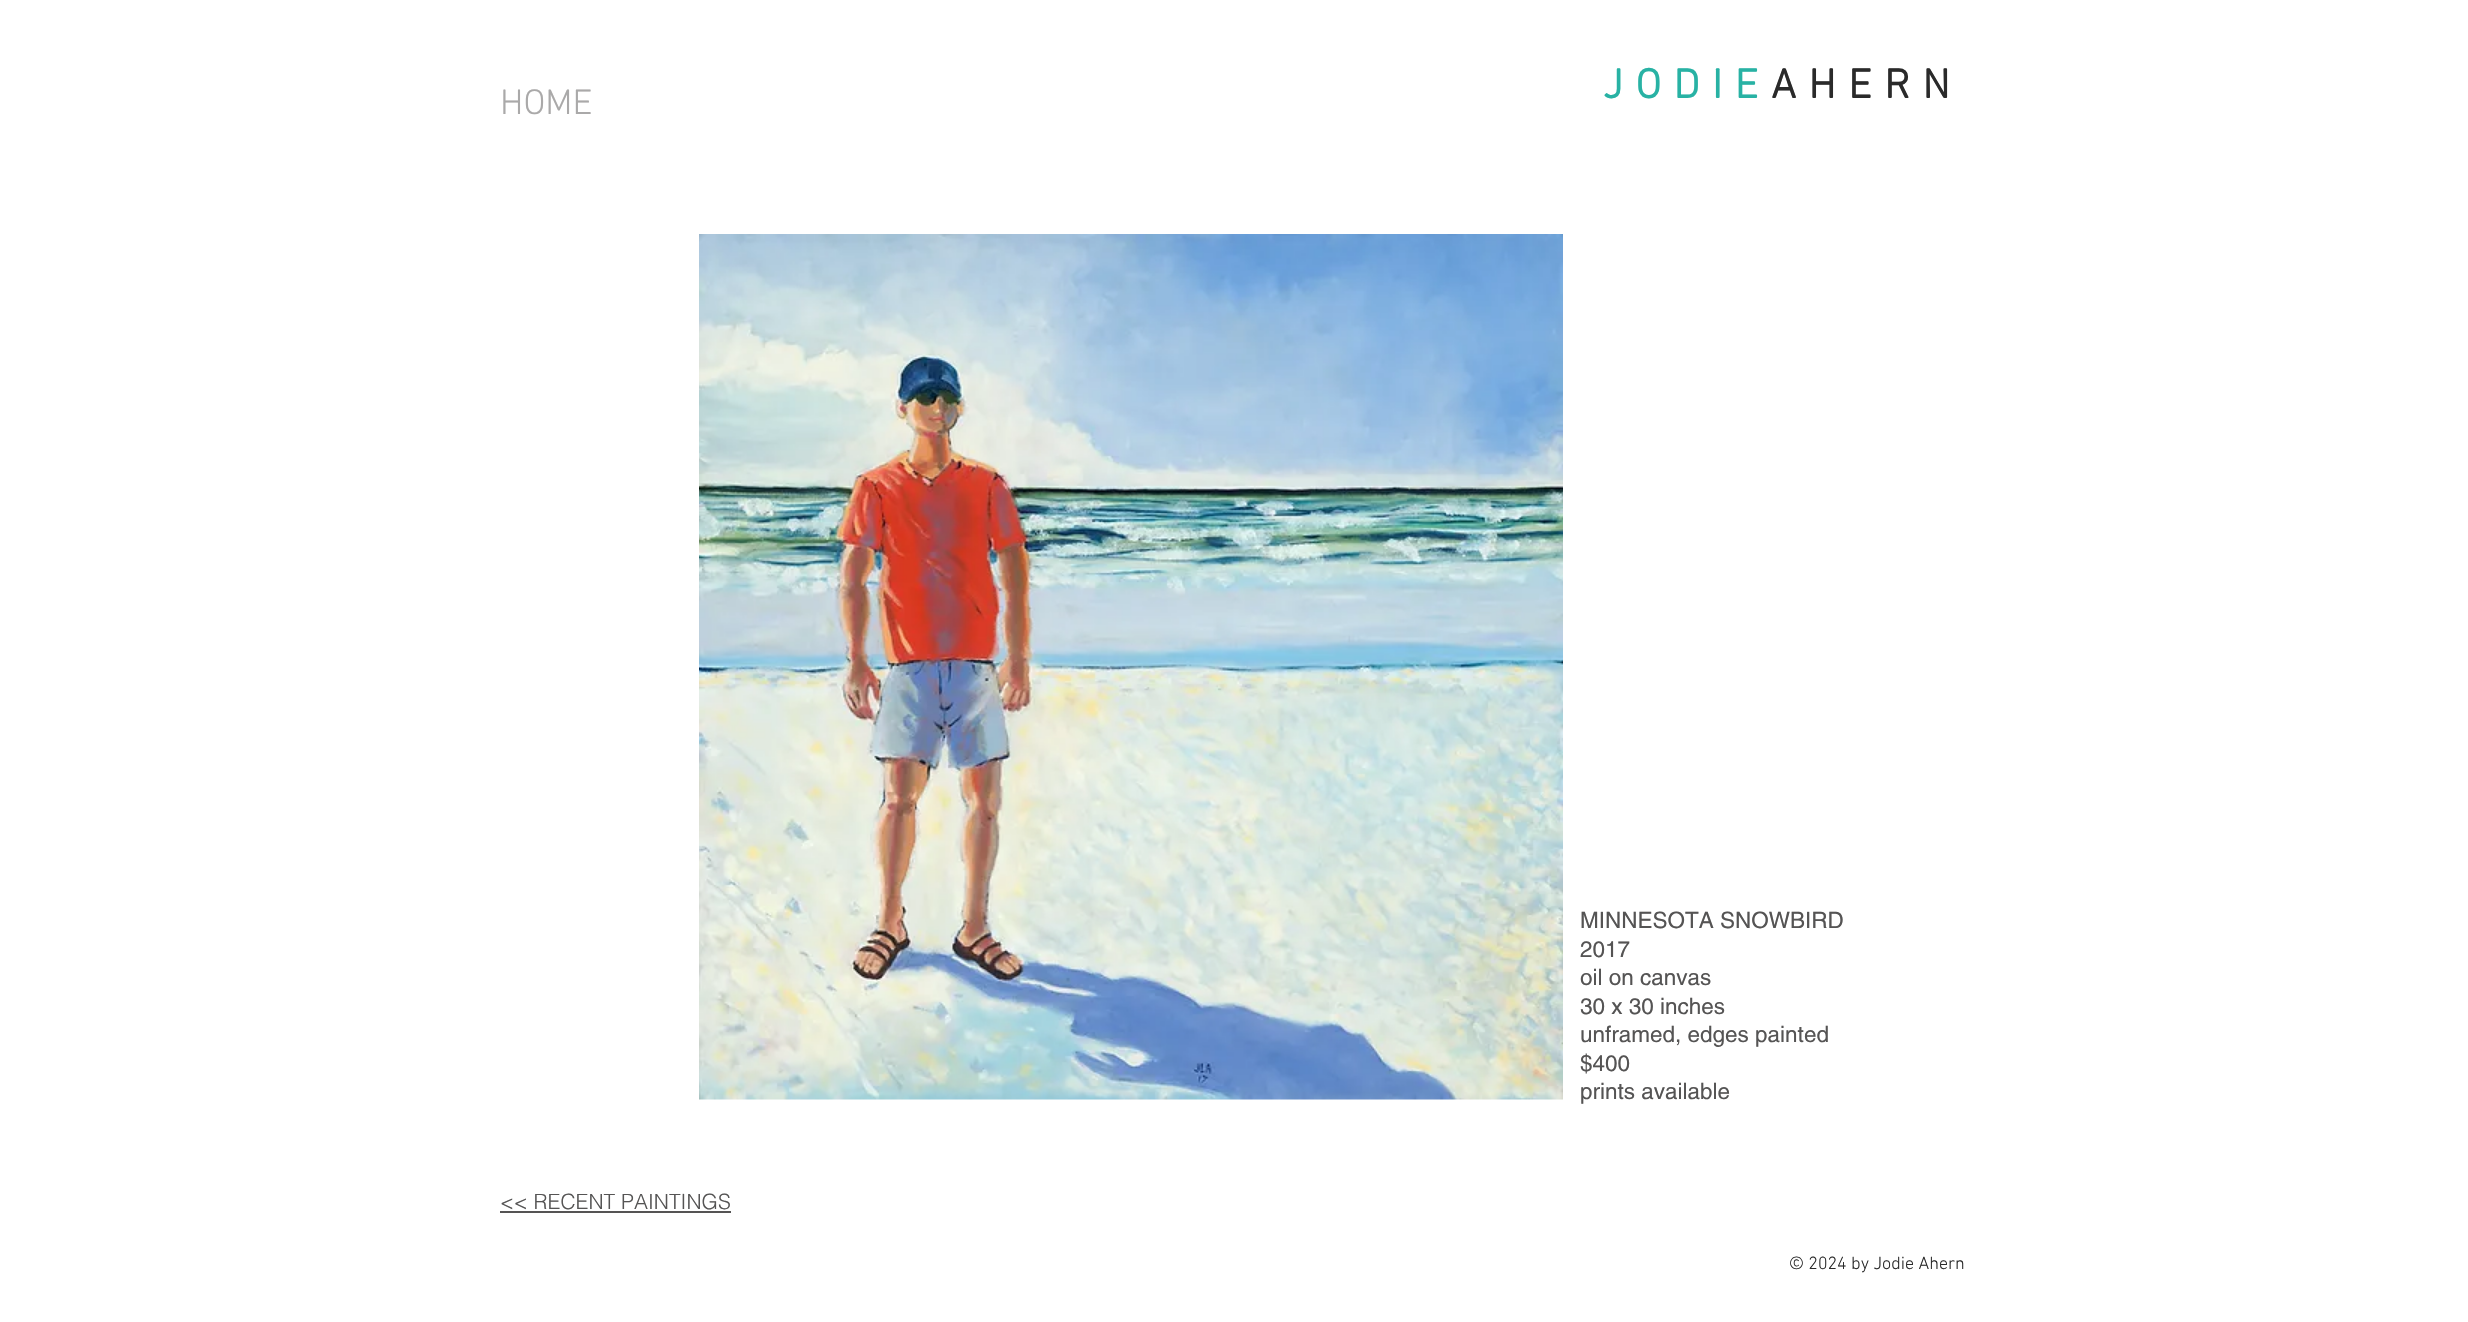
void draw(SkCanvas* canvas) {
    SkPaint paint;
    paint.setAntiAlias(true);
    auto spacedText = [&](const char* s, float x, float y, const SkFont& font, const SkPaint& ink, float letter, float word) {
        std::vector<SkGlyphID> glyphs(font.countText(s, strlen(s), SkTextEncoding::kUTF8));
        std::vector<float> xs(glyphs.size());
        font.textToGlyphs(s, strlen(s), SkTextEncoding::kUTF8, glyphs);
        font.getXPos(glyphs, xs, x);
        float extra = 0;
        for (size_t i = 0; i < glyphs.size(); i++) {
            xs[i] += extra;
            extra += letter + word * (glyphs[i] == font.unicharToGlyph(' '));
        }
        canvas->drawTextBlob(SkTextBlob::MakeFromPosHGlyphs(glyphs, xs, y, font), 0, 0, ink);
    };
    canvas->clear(0xFFFFFFFF);
    SkFont font1(fontMgr->matchFamilyStyle("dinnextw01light", SkFontStyle::Bold()), 42);
    font1.setSubpixel(true);
    paint.setColor(0xFF28B2A4);
    spacedText("JODIE", 1603, 98, font1, paint, 12.5f, 0);
    paint.setColor(0xFF2A2A2A);
    spacedText("AHERN", 1771, 98, font1, paint, 12.5f, 0);
    SkFont font2(fontMgr->matchFamilyStyle("dinnextw01light", SkFontStyle(300, SkFontStyle::kNormal_Width, SkFontStyle::kUpright_Slant)), 36);
    font2.setSubpixel(true);
    paint.setColor(0xFFAAA9A9);
    canvas->drawString("HOME", 500, 114, font2, paint);
    canvas->drawImageRect(SkImages::DeferredFromEncodedData(SkData::MakeFromFileName("img1.png")), SkRect::MakeXYWH(699, 234, 864, 866), SkSamplingOptions());
    SkFont font3(fontMgr->matchFamilyStyle("helvetica", SkFontStyle::Normal()), 22.5f);
    font3.setSubpixel(true);
    paint.setColor(0xFF555454);
    canvas->drawString("MINNESOTA SNOWBIRD", 1580, 928, font3, paint);
    canvas->drawString("2017", 1580, 957, font3, paint);
    canvas->drawString("oil on canvas", 1580, 985, font3, paint);
    canvas->drawString("30 x 30 inches", 1580, 1014, font3, paint);
    canvas->drawString("unframed, edges painted", 1580, 1042, font3, paint);
    canvas->drawString("$400", 1580, 1071, font3, paint);
    canvas->drawString("prints available", 1580, 1099, font3, paint);
    SkFont font4(fontMgr->matchFamilyStyle("helvetica", SkFontStyle(300, SkFontStyle::kNormal_Width, SkFontStyle::kUpright_Slant)), 21);
    font4.setSubpixel(true);
    canvas->drawString("<< RECENT PAINTINGS", 500, 1209, font4, paint);
    canvas->drawRect(SkRect::MakeXYWH(500, 1211, 231, 2), paint);
    SkFont font5(fontMgr->matchFamilyStyle("dinnextw01light", SkFontStyle(300, SkFontStyle::kNormal_Width, SkFontStyle::kUpright_Slant)), 18);
    font5.setSubpixel(true);
    paint.setColor(0xFF2A2A2A);
    canvas->drawString("© 2024 by Jodie Ahern", 1789, 1269, font5, paint);
}
